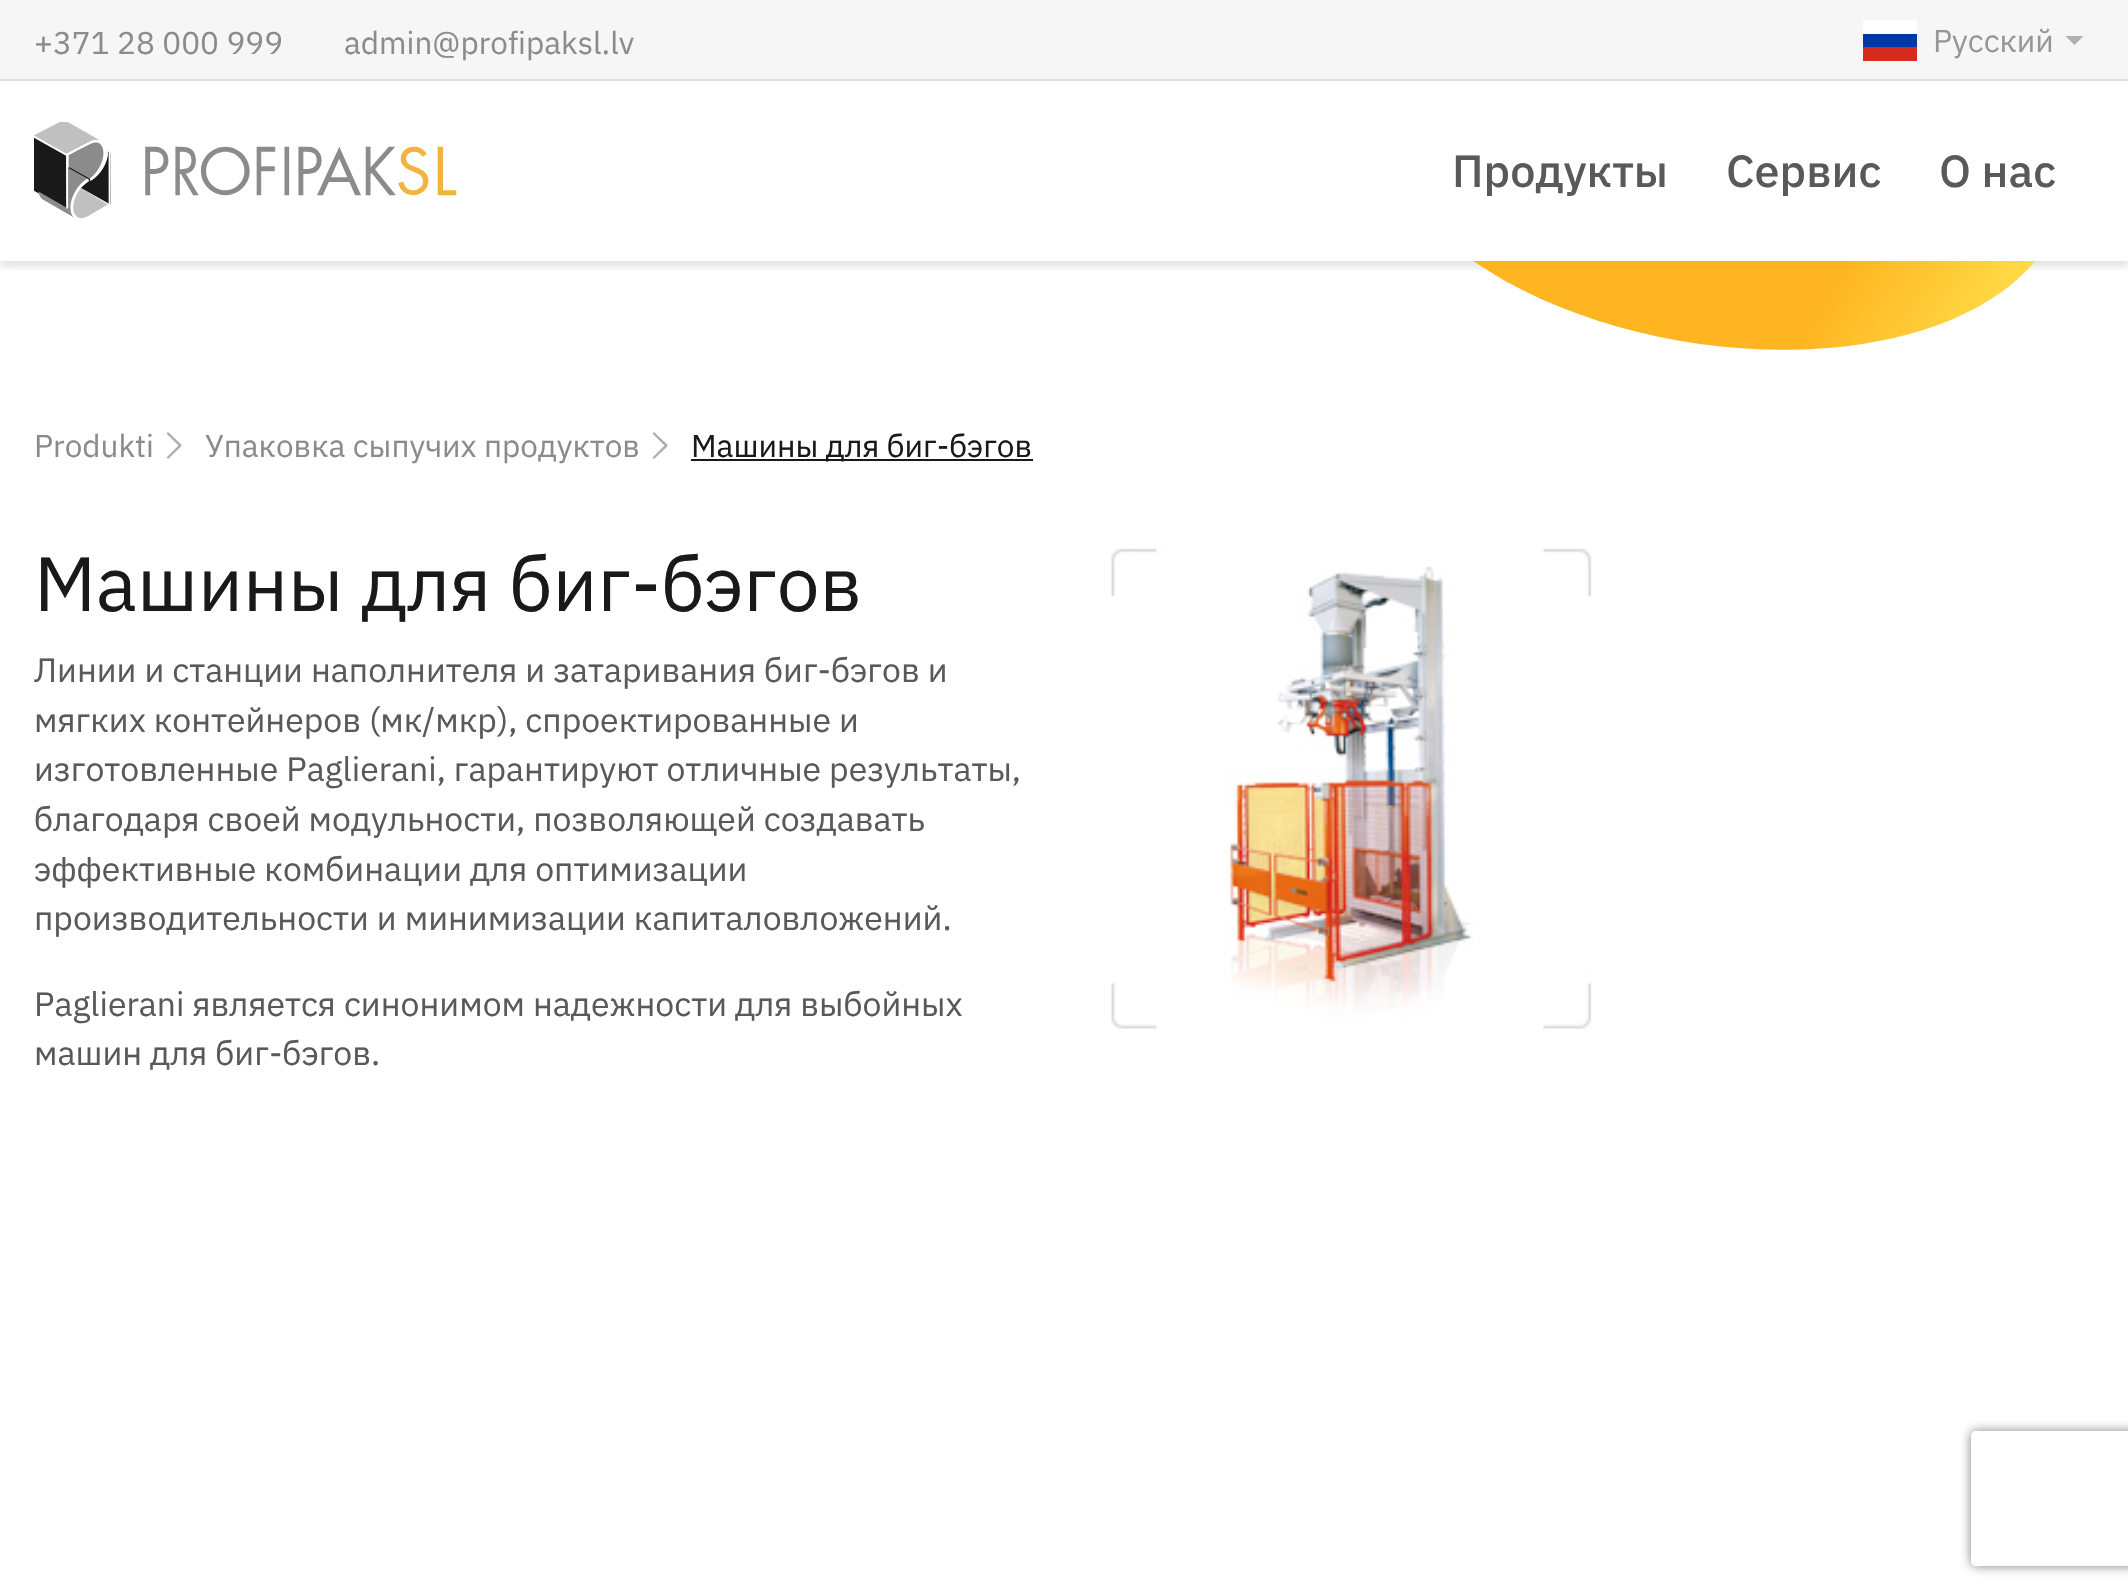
void draw(SkCanvas* canvas) {
    SkPaint paint;
    paint.setAntiAlias(true);
    canvas->clear(0xFFFFFFFF);
    canvas->save();
    canvas->clipRect(SkRect::MakeXYWH(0, 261, 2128, 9));
    paint.setColor(0x1F000000);
    paint.setMaskFilter(SkMaskFilter::MakeBlur(kNormal_SkBlurStyle, 4.5f));
    canvas->drawRect(SkRect::MakeXYWH(0, 5, 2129, 261), paint);
    paint.setMaskFilter(nullptr);
    canvas->restore();
    paint.setColor(0xFFF6F6F6);
    canvas->drawRect(SkRect::MakeXYWH(0, 0, 2128, 79), paint);
    paint.setColor(0xFFDFDFDF);
    canvas->drawRect(SkRect::MakeXYWH(0, 79, 2128, 2), paint);
    SkFont font1(fontMgr->matchFamilyStyle("IBM Plex Sans", SkFontStyle::Normal()), 31.5f);
    font1.setSubpixel(true);
    paint.setColor(0xFF8A8B8A);
    canvas->drawString("+371 28 000 999", 34, 54, font1, paint);
    canvas->drawString("admin@profipaksl.lv", 344, 54, font1, paint);
    paint.setColor(0xFFFFFFFF);
    canvas->drawRect(SkRect::MakeXYWH(1863, 20, 54, 14), paint);
    paint.setColor(0xFF0039A6);
    canvas->drawRect(SkRect::MakeXYWH(1863, 34, 54, 13), paint);
    paint.setColor(0xFFD52B1E);
    canvas->drawRect(SkRect::MakeXYWH(1863, 47, 54, 14), paint);
    paint.setColor(0xFF959695);
    canvas->drawString("Русский", 1933, 52, font1, paint);
    paint.setColor(0xFFB0B0B0);
    canvas->drawPath(SkPathBuilder().moveTo(2065.5f, 36).lineTo(2083.5f, 36).lineTo(2074.5f, 45).close().detach(), paint);
    canvas->drawImageRect(SkImages::DeferredFromEncodedData(SkData::MakeFromFileName("img1.png")), SkRect::MakeXYWH(34, 122, 423, 97), SkSamplingOptions());
    SkFont font2(fontMgr->matchFamilyStyle("IBM Plex Sans", SkFontStyle(500, SkFontStyle::kNormal_Width, SkFontStyle::kUpright_Slant)), 45);
    font2.setSubpixel(true);
    paint.setColor(0xFF595959);
    canvas->drawString("Продукты", 1452, 187, font2, paint);
    canvas->drawString("Сервис", 1726, 187, font2, paint);
    canvas->drawString("О нас", 1939, 187, font2, paint);
    canvas->save();
    canvas->clipRect(SkRect::MakeXYWH(1449, 261, 603, 90));
    {
        const SkColor colors[] = {0xFFFFDB46, 0xFFFFB522};
        const float stops[] = {0, 1};
        const SkPoint ends[] = {{2042, 248}, {1903, 167}};
        paint.setShader(SkGradientShader::MakeLinear(ends, colors, stops, 2, SkTileMode::kClamp));
        paint.setAlpha(255);
    }
    canvas->drawPath(SkPathBuilder(SkPathFillType::kEvenOdd).moveTo(1988, 45).lineTo(1703, -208).lineTo(1522, -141).lineTo(1449, 243).cubicTo(1570, 342, 1789, 379, 1938, 325).cubicTo(2086, 270, 2108, 145, 1988, 45).close().detach(), paint);
    canvas->restore();
    paint.setShader(nullptr);
    paint.setColor(0xFF8A8B8A);
    canvas->drawString("Produkti", 34, 457, font1, paint);
    paint.setColor(0xFFADADAF);
    canvas->drawPath(SkPathBuilder(SkPathFillType::kEvenOdd).moveTo(168, 459).lineTo(166.5f, 457.5f).lineTo(178.5f, 445.5f).lineTo(166.5f, 433.5f).lineTo(168, 432).lineTo(179, 442.5f).cubicTo(182.5f, 446, 182.5f, 445, 179, 448.5f).close().detach(), paint);
    paint.setColor(0xFF8A8B8A);
    canvas->drawString("Упаковка сыпучих продуктов", 205, 457, font1, paint);
    paint.setColor(0xFFADADAF);
    canvas->drawPath(SkPathBuilder(SkPathFillType::kEvenOdd).moveTo(654, 459).lineTo(652.5f, 457.5f).lineTo(664.5f, 445.5f).lineTo(652.5f, 433.5f).lineTo(654, 432).lineTo(665, 442.5f).cubicTo(668.5f, 446, 668.5f, 445, 665, 448.5f).close().detach(), paint);
    paint.setColor(0xFF1A1919);
    canvas->drawRect(SkRect::MakeXYWH(691, 459, 342, 2), paint);
    canvas->drawString("Машины для биг-бэгов", 691, 457, font1, paint);
    SkFont font3(fontMgr->matchFamilyStyle("IBM Plex Sans", SkFontStyle::Normal()), 76.5f);
    font3.setSubpixel(true);
    canvas->drawString("Машины для биг-бэгов", 34, 611, font3, paint);
    SkFont font4(fontMgr->matchFamilyStyle("IBM Plex Sans", SkFontStyle::Normal()), 33.75f);
    font4.setSubpixel(true);
    paint.setColor(0xFF595959);
    canvas->drawString("Линии и станции наполнителя и затаривания биг-бэгов и", 34, 682, font4, paint);
    canvas->drawString("мягких контейнеров (мк/мкр), спроектированные и", 34, 732, font4, paint);
    canvas->drawString("изготовленные Paglierani, гарантируют отличные результаты,", 34, 781, font4, paint);
    canvas->drawString("благодаря своей модульности, позволяющей создавать", 34, 831, font4, paint);
    canvas->drawString("эффективные комбинации для оптимизации", 34, 881, font4, paint);
    canvas->drawString("производительности и минимизации капиталовложений.", 34, 930, font4, paint);
    canvas->drawString("Paglierani является синонимом надежности для выбойных", 34, 1016, font4, paint);
    canvas->drawString("машин для биг-бэгов.", 34, 1065, font4, paint);
    canvas->drawImageRect(SkImages::DeferredFromEncodedData(SkData::MakeFromFileName("img2.png")), SkRect::MakeXYWH(1111, 548, 481, 481), SkSamplingOptions());
    canvas->save();
    canvas->clipPath(SkPathBuilder(SkPathFillType::kEvenOdd).moveTo(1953, 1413).lineTo(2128, 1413).lineTo(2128, 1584).lineTo(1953, 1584).close().moveTo(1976, 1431).lineTo(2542, 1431).cubicTo(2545, 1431, 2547, 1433, 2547, 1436).lineTo(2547, 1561).cubicTo(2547, 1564, 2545, 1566, 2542, 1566).lineTo(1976, 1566).cubicTo(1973, 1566, 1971, 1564, 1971, 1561).lineTo(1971, 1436).cubicTo(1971, 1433, 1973, 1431, 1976, 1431).close().detach(), true);
    paint.setColor(0xFF808080);
    paint.setMaskFilter(SkMaskFilter::MakeBlur(kNormal_SkBlurStyle, 5.5f));
    canvas->drawRoundRect(SkRect::MakeXYWH(1971, 1431, 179, 135), 5, 5, paint);
    paint.setMaskFilter(nullptr);
    canvas->restore();
}
